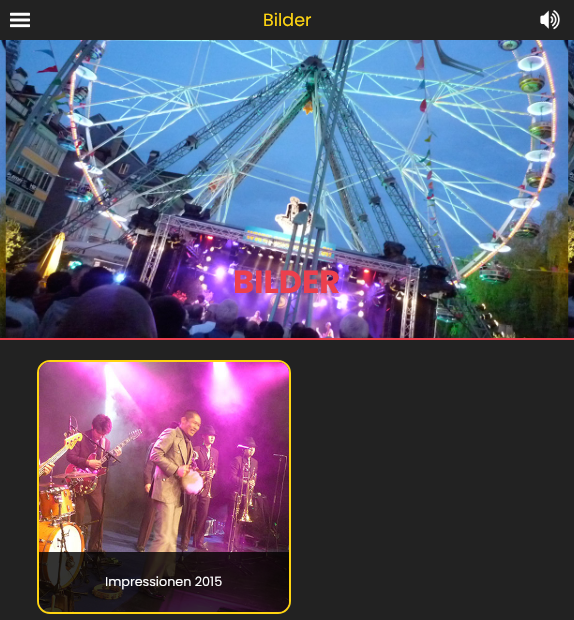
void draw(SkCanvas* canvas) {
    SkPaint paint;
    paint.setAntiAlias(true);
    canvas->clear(0xFF222222);
    canvas->drawImageRect(SkImages::DeferredFromEncodedData(SkData::MakeFromFileName("img1.png")), SkRect::MakeXYWH(10, 12, 20, 16), SkSamplingOptions());
    SkFont font1(fontMgr->matchFamilyStyle("Poppins", SkFontStyle::Normal()), 17.5f);
    font1.setSubpixel(true);
    paint.setColor(0xFFFFD511);
    canvas->drawString("Bilder", 263, 26, font1, paint);
    canvas->drawImageRect(SkImages::DeferredFromEncodedData(SkData::MakeFromFileName("img2.png")), SkRect::MakeXYWH(540, 10, 20, 20), SkSamplingOptions());
    canvas->drawImageRect(SkImages::DeferredFromEncodedData(SkData::MakeFromFileName("img3.png")), SkRect::MakeXYWH(0, 40, 574, 298), SkSamplingOptions());
    paint.setColor(0xFFEC404E);
    canvas->drawRect(SkRect::MakeXYWH(0, 338, 574, 2), paint);
    SkFont font2(fontMgr->matchFamilyStyle("Poppins", SkFontStyle::Bold()), 32);
    font2.setSubpixel(true);
    canvas->drawString("BILDER", 233, 293, font2, paint);
    paint.setStyle(SkPaint::kStroke_Style);
    paint.setStrokeWidth(2);
    paint.setColor(0xFFFFD511);
    canvas->drawRoundRect(SkRect::MakeXYWH(38, 361, 252, 252), 12, 12, paint);
    canvas->drawImageRect(SkImages::DeferredFromEncodedData(SkData::MakeFromFileName("img4.png")), SkRect::MakeXYWH(39, 362, 250, 250), SkSamplingOptions());
    paint.setStyle(SkPaint::kFill_Style);
    paint.setColor(0xCC000000);
    canvas->drawPath(SkPathBuilder().moveTo(39, 552).lineTo(289, 552).lineTo(289, 601).cubicTo(289, 607, 284, 612, 278, 612).lineTo(50, 612).cubicTo(44, 612, 39, 607, 39, 601).close().detach(), paint);
    SkFont font3(fontMgr->matchFamilyStyle("Poppins", SkFontStyle::Normal()), 12.75f);
    font3.setSubpixel(true);
    paint.setColor(0xFFFFFFFF);
    canvas->drawString("Impressionen 2015", 105, 586, font3, paint);
}
